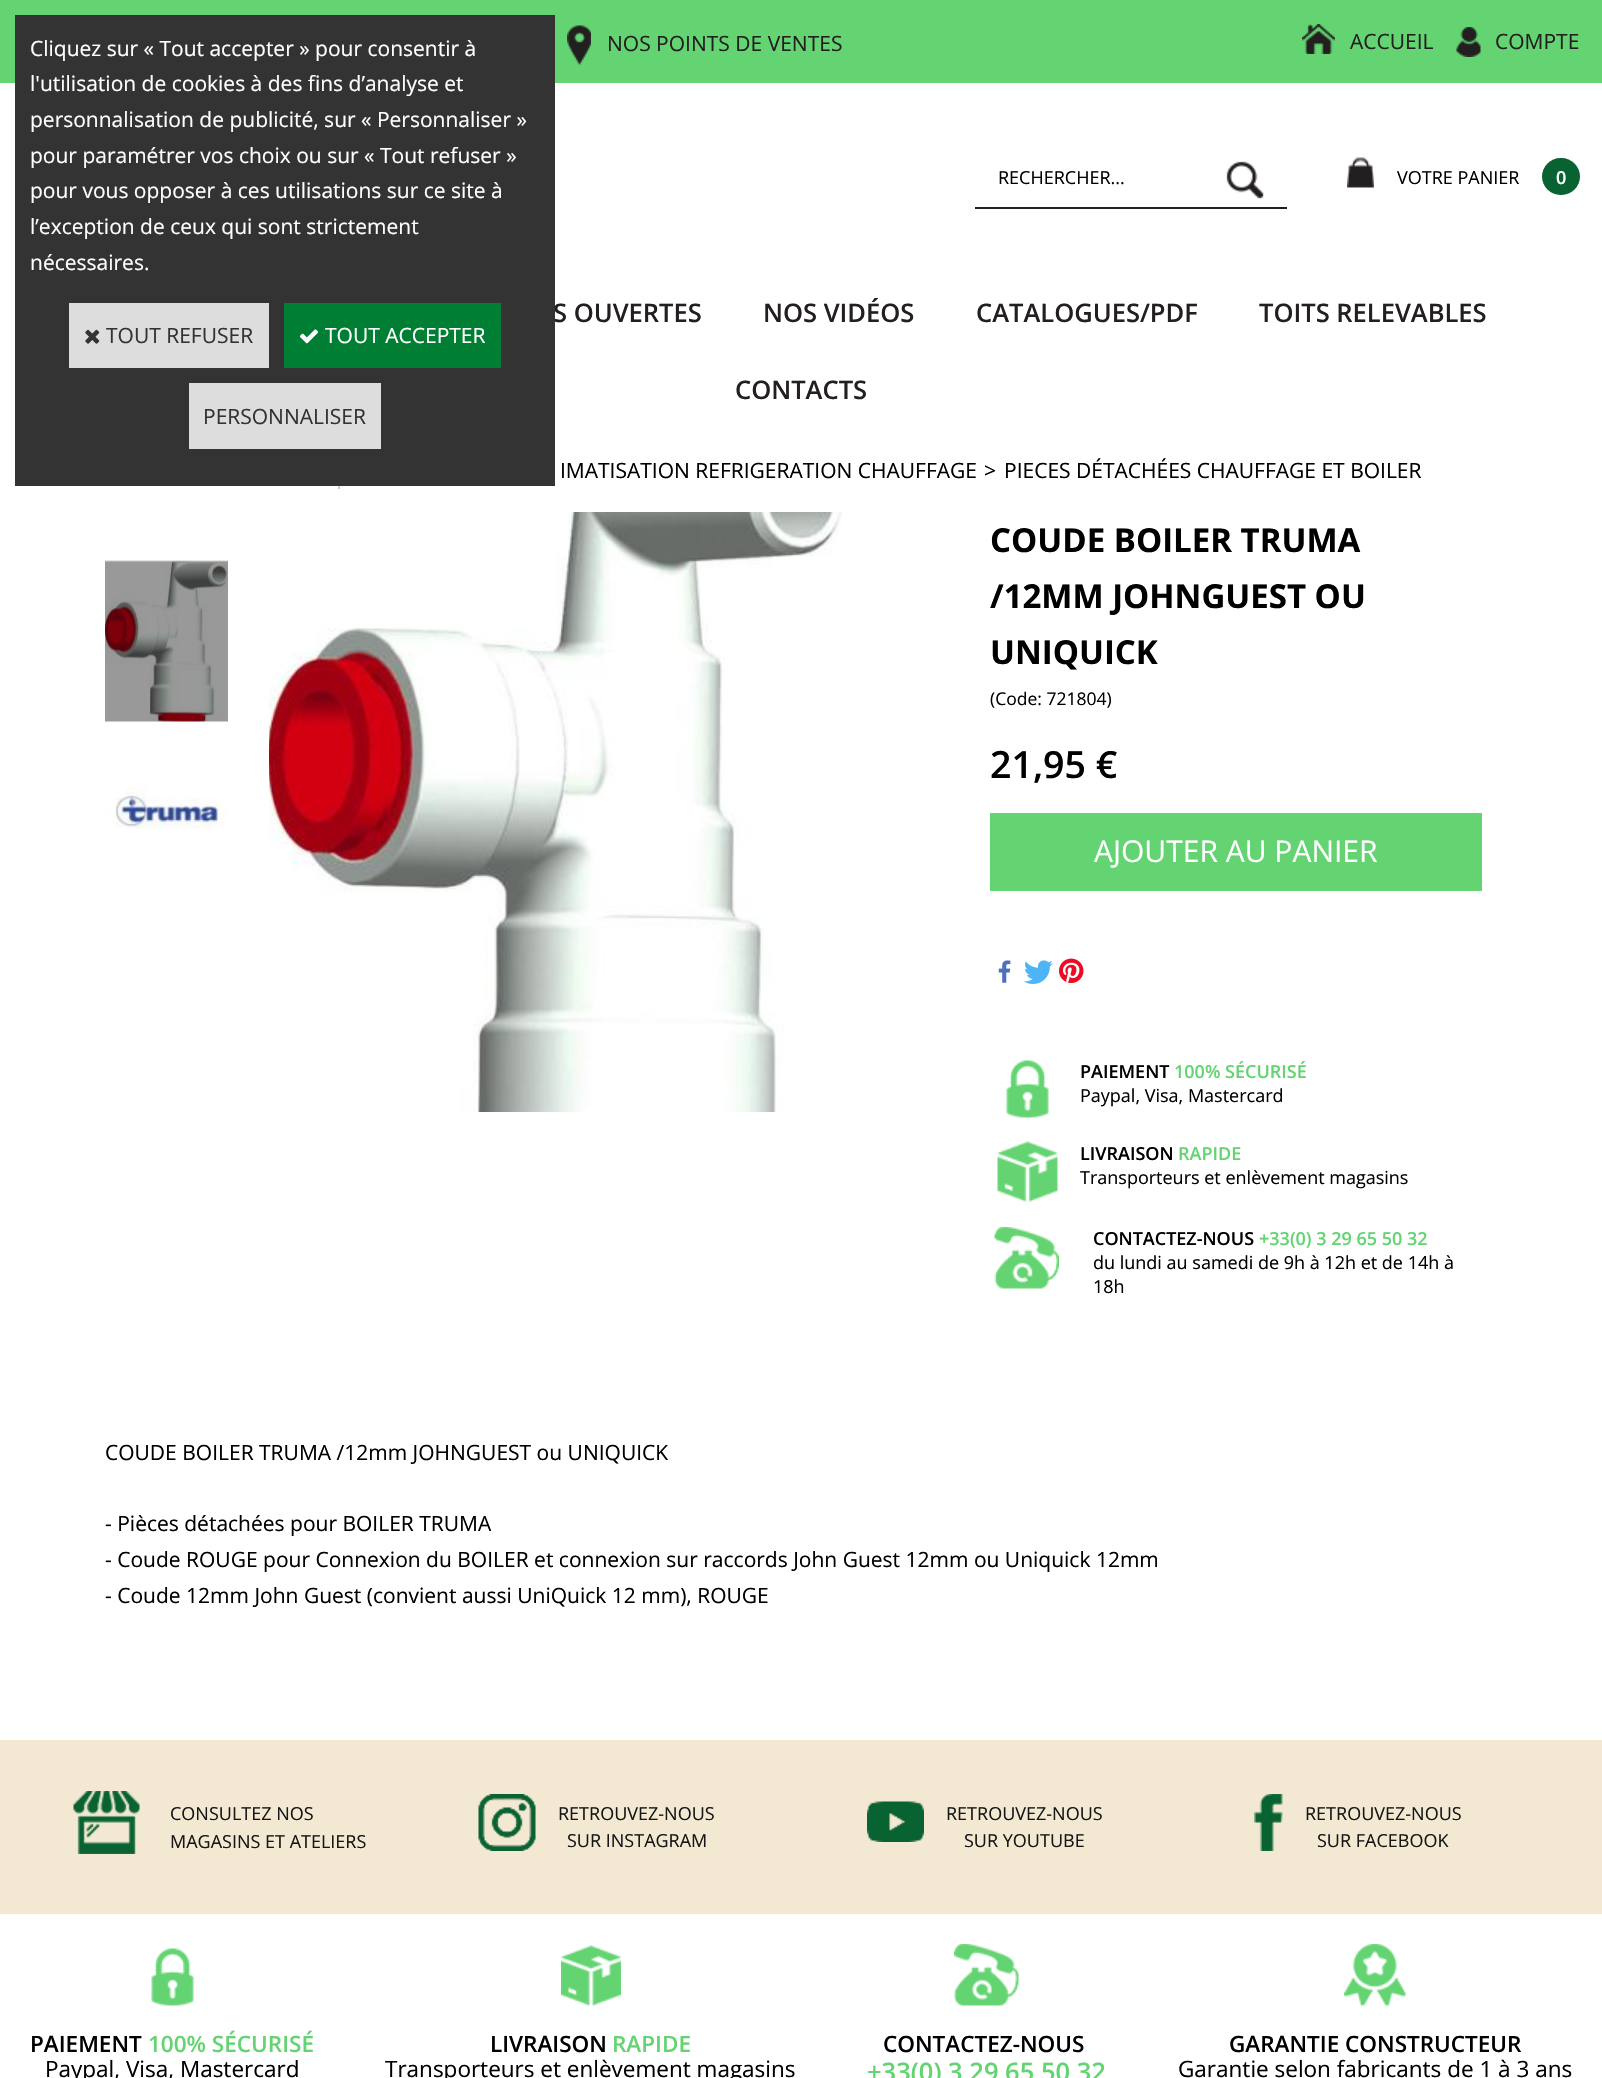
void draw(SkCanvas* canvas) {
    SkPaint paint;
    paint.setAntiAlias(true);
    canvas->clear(0xFFFFFFFF);
    paint.setColor(0xFF63D471);
    canvas->drawRect(SkRect::MakeXYWH(0, 0, 1602, 83), paint);
    SkFont font1(fontMgr->matchFamilyStyle("Open Sans", SkFontStyle(600, SkFontStyle::kNormal_Width, SkFontStyle::kUpright_Slant)), 25.5f);
    font1.setSubpixel(true);
    paint.setColor(0xFF231F20);
    canvas->drawString("S OUVERTES", 553, 322, font1, paint);
    paint.setColor(0xFF333333);
    canvas->drawRect(SkRect::MakeXYWH(15, 15, 540, 471), paint);
    SkFont font2(fontMgr->matchFamilyStyle("Open Sans", SkFontStyle::Normal()), 21);
    font2.setSubpixel(true);
    paint.setColor(0xFFFFFFFF);
    canvas->drawString("Cliquez sur « Tout accepter » pour consentir à", 30, 56, font2, paint);
    canvas->drawString("l'utilisation de cookies à des fins d’analyse et", 30, 91, font2, paint);
    canvas->drawString("personnalisation de publicité, sur « Personnaliser »", 30, 127, font2, paint);
    canvas->drawString("pour paramétrer vos choix ou sur « Tout refuser »", 30, 163, font2, paint);
    canvas->drawString("pour vous opposer à ces utilisations sur ce site à", 30, 198, font2, paint);
    canvas->drawString("l’exception de ceux qui sont strictement", 30, 234, font2, paint);
    canvas->drawString("nécessaires.", 30, 270, font2, paint);
    paint.setColor(0xFFDDDDDD);
    canvas->drawRect(SkRect::MakeXYWH(69, 303, 200, 65), paint);
    canvas->drawImageRect(SkImages::DeferredFromEncodedData(SkData::MakeFromFileName("img1.png")), SkRect::MakeXYWH(85, 329, 15, 15), SkSamplingOptions());
    paint.setColor(0xFF333333);
    canvas->drawString("TOUT REFUSER", 106, 343, font2, paint);
    paint.setColor(0xFF007E33);
    canvas->drawRect(SkRect::MakeXYWH(284, 303, 217, 65), paint);
    canvas->drawImageRect(SkImages::DeferredFromEncodedData(SkData::MakeFromFileName("img2.png")), SkRect::MakeXYWH(299, 329, 20, 15), SkSamplingOptions());
    paint.setColor(0xFFFFFFFF);
    canvas->drawString("TOUT ACCEPTER", 325, 343, font2, paint);
    paint.setColor(0xFFDDDDDD);
    canvas->drawRect(SkRect::MakeXYWH(189, 383, 192, 66), paint);
    paint.setColor(0xFF333333);
    canvas->drawString("PERSONNALISER", 203, 424, font2, paint);
    canvas->drawImageRect(SkImages::DeferredFromEncodedData(SkData::MakeFromFileName("img3.png")), SkRect::MakeXYWH(567, 25, 24, 40), SkSamplingOptions());
    paint.setColor(0xFF231F20);
    canvas->drawString("NOS POINTS DE VENTES", 607, 51, font2, paint);
    canvas->drawImageRect(SkImages::DeferredFromEncodedData(SkData::MakeFromFileName("img4.png")), SkRect::MakeXYWH(1302, 24, 33, 30), SkSamplingOptions());
    canvas->drawString("ACCUEIL", 1350, 49, font2, paint);
    canvas->drawImageRect(SkImages::DeferredFromEncodedData(SkData::MakeFromFileName("img5.png")), SkRect::MakeXYWH(1456, 27, 25, 30), SkSamplingOptions());
    canvas->drawString("COMPTE", 1495, 49, font2, paint);
    canvas->drawRect(SkRect::MakeXYWH(975, 207, 312, 2), paint);
    SkFont font3(fontMgr->matchFamilyStyle("Open Sans", SkFontStyle::Normal()), 18);
    font3.setSubpixel(true);
    paint.setColor(0xFF000000);
    canvas->drawString("RECHERCHER...", 998, 184, font3, paint);
    canvas->drawImageRect(SkImages::DeferredFromEncodedData(SkData::MakeFromFileName("img6.png")), SkRect::MakeXYWH(1226, 161, 38, 38), SkSamplingOptions());
    canvas->drawImageRect(SkImages::DeferredFromEncodedData(SkData::MakeFromFileName("img7.png")), SkRect::MakeXYWH(1347, 157, 27, 31), SkSamplingOptions());
    canvas->drawString("VOTRE PANIER", 1397, 184, font3, paint);
    paint.setColor(0xFF086232);
    canvas->drawRoundRect(SkRect::MakeXYWH(1542, 158, 38, 37), 18.5f, 18.5f, paint);
    SkFont font4(fontMgr->matchFamilyStyle("Open Sans", SkFontStyle(600, SkFontStyle::kNormal_Width, SkFontStyle::kUpright_Slant)), 18);
    font4.setSubpixel(true);
    paint.setColor(0xFFFFFFFF);
    canvas->drawString("0", 1556, 184, font4, paint);
    paint.setColor(0xFF231F20);
    canvas->drawString("NOS VIDÉOS", 763, 322, font1, paint);
    canvas->drawString("CATALOGUES/PDF", 976, 322, font1, paint);
    canvas->drawString("TOITS RELEVABLES", 1259, 322, font1, paint);
    canvas->drawString("CONTACTS", 735, 399, font1, paint);
    paint.setColor(0xFFCCCCCC);
    canvas->drawRect(SkRect::MakeXYWH(338, 486, 2, 3), paint);
    paint.setColor(0xFF000000);
    canvas->drawString("IMATISATION REFRIGERATION CHAUFFAGE", 560, 478, font2, paint);
    canvas->drawString(">", 984, 478, font2, paint);
    canvas->drawString("PIECES DÉTACHÉES CHAUFFAGE ET BOILER", 1004, 478, font2, paint);
    canvas->drawImageRect(SkImages::DeferredFromEncodedData(SkData::MakeFromFileName("img8.png")), SkRect::MakeXYWH(105, 560, 123, 162), SkSamplingOptions());
    canvas->drawImageRect(SkImages::DeferredFromEncodedData(SkData::MakeFromFileName("img9.png")), SkRect::MakeXYWH(105, 787, 122, 42), SkSamplingOptions());
    canvas->drawImageRect(SkImages::DeferredFromEncodedData(SkData::MakeFromFileName("img10.png")), SkRect::MakeXYWH(269, 512, 573, 600), SkSamplingOptions());
    SkFont font5(fontMgr->matchFamilyStyle("Open Sans", SkFontStyle::Bold()), 33);
    font5.setSubpixel(true);
    canvas->drawString("COUDE BOILER TRUMA", 990, 552, font5, paint);
    canvas->drawString("/12MM JOHNGUEST OU", 990, 608, font5, paint);
    canvas->drawString("UNIQUICK", 990, 664, font5, paint);
    SkFont font6(fontMgr->matchFamilyStyle("Open Sans", SkFontStyle::Normal()), 17.5f);
    font6.setSubpixel(true);
    canvas->drawString("(Code: 721804)", 990, 705, font6, paint);
    SkFont font7(fontMgr->matchFamilyStyle("Open Sans", SkFontStyle(600, SkFontStyle::kNormal_Width, SkFontStyle::kUpright_Slant)), 37.5f);
    font7.setSubpixel(true);
    canvas->drawString("21,95 €", 990, 778, font7, paint);
    paint.setColor(0xFF63D471);
    canvas->drawRect(SkRect::MakeXYWH(990, 813, 492, 78), paint);
    SkFont font8(fontMgr->matchFamilyStyle("Open Sans", SkFontStyle::Normal()), 30);
    font8.setSubpixel(true);
    paint.setColor(0xFFFFFFFF);
    canvas->drawString("AJOUTER AU PANIER", 1094, 862, font8, paint);
    canvas->drawImageRect(SkImages::DeferredFromEncodedData(SkData::MakeFromFileName("img11.png")), SkRect::MakeXYWH(998, 960, 13, 23), SkSamplingOptions());
    canvas->drawImageRect(SkImages::DeferredFromEncodedData(SkData::MakeFromFileName("img12.png")), SkRect::MakeXYWH(1024, 960, 29, 24), SkSamplingOptions());
    canvas->drawImageRect(SkImages::DeferredFromEncodedData(SkData::MakeFromFileName("img13.png")), SkRect::MakeXYWH(1059, 958, 25, 25), SkSamplingOptions());
    canvas->drawImageRect(SkImages::DeferredFromEncodedData(SkData::MakeFromFileName("img14.png")), SkRect::MakeXYWH(1006, 1060, 43, 58), SkSamplingOptions());
    paint.setColor(0xFF000000);
    canvas->drawString("PAIEMENT", 1080, 1078, font4, paint);
    paint.setColor(0xFF63D471);
    canvas->drawString("100% SÉCURISÉ", 1174, 1078, font4, paint);
    paint.setColor(0xFF000000);
    canvas->drawString("Paypal, Visa, Mastercard", 1080, 1102, font3, paint);
    canvas->drawImageRect(SkImages::DeferredFromEncodedData(SkData::MakeFromFileName("img15.png")), SkRect::MakeXYWH(997, 1141, 61, 61), SkSamplingOptions());
    canvas->drawString("LIVRAISON", 1080, 1160, font4, paint);
    paint.setColor(0xFF63D471);
    canvas->drawString("RAPIDE", 1178, 1160, font4, paint);
    paint.setColor(0xFF000000);
    canvas->drawString("Transporteurs et enlèvement magasins", 1080, 1184, font3, paint);
    canvas->drawImageRect(SkImages::DeferredFromEncodedData(SkData::MakeFromFileName("img16.png")), SkRect::MakeXYWH(994, 1227, 65, 62), SkSamplingOptions());
    canvas->drawString("CONTACTEZ-NOUS", 1093, 1245, font4, paint);
    paint.setColor(0xFF63D471);
    canvas->drawString("+33(0) 3 29 65 50 32", 1259, 1245, font4, paint);
    paint.setColor(0xFF000000);
    canvas->drawString("du lundi au samedi de 9h à 12h et de 14h à", 1093, 1269, font3, paint);
    canvas->drawString("18h", 1093, 1293, font3, paint);
    canvas->drawString("COUDE BOILER TRUMA /12mm JOHNGUEST ou UNIQUICK", 105, 1460, font2, paint);
    canvas->drawString("- Pièces détachées pour BOILER TRUMA", 105, 1531, font2, paint);
    canvas->drawString("- Coude ROUGE pour Connexion du BOILER et connexion sur raccords John Guest 12mm ou Uniquick 12mm", 105, 1567, font2, paint);
    canvas->drawString("- Coude 12mm John Guest (convient aussi UniQuick 12 mm), ROUGE", 105, 1603, font2, paint);
    paint.setColor(0xFFF3E9D2);
    canvas->drawRect(SkRect::MakeXYWH(0, 1740, 1602, 174), paint);
    canvas->drawImageRect(SkImages::DeferredFromEncodedData(SkData::MakeFromFileName("img17.png")), SkRect::MakeXYWH(73, 1791, 67, 63), SkSamplingOptions());
    paint.setColor(0xFF161616);
    canvas->drawString("CONSULTEZ NOS", 170, 1820, font3, paint);
    canvas->drawString("MAGASINS ET ATELIERS", 170, 1848, font3, paint);
    canvas->drawImageRect(SkImages::DeferredFromEncodedData(SkData::MakeFromFileName("img18.png")), SkRect::MakeXYWH(478, 1794, 58, 57), SkSamplingOptions());
    canvas->drawString("RETROUVEZ-NOUS", 558, 1820, font3, paint);
    canvas->drawString("SUR INSTAGRAM", 567, 1847, font3, paint);
    canvas->drawImageRect(SkImages::DeferredFromEncodedData(SkData::MakeFromFileName("img19.png")), SkRect::MakeXYWH(867, 1801, 57, 41), SkSamplingOptions());
    canvas->drawString("RETROUVEZ-NOUS", 946, 1820, font3, paint);
    canvas->drawString("SUR YOUTUBE", 964, 1847, font3, paint);
    canvas->drawImageRect(SkImages::DeferredFromEncodedData(SkData::MakeFromFileName("img20.png")), SkRect::MakeXYWH(1254, 1794, 29, 57), SkSamplingOptions());
    canvas->drawString("RETROUVEZ-NOUS", 1305, 1820, font3, paint);
    canvas->drawString("SUR FACEBOOK", 1317, 1847, font3, paint);
    canvas->drawImageRect(SkImages::DeferredFromEncodedData(SkData::MakeFromFileName("img14.png")), SkRect::MakeXYWH(151, 1948, 43, 58), SkSamplingOptions());
    SkFont font9(fontMgr->matchFamilyStyle("Open Sans", SkFontStyle(600, SkFontStyle::kNormal_Width, SkFontStyle::kUpright_Slant)), 22.5f);
    font9.setSubpixel(true);
    paint.setColor(0xFF000000);
    canvas->drawString("PAIEMENT", 30, 2052, font9, paint);
    paint.setColor(0xFF63D471);
    canvas->drawString("100% SÉCURISÉ", 148, 2052, font9, paint);
    SkFont font10(fontMgr->matchFamilyStyle("Open Sans", SkFontStyle::Normal()), 22.5f);
    font10.setSubpixel(true);
    paint.setColor(0xFF000000);
    canvas->drawString("Paypal, Visa, Mastercard", 45, 2077, font10, paint);
    canvas->drawImageRect(SkImages::DeferredFromEncodedData(SkData::MakeFromFileName("img21.png")), SkRect::MakeXYWH(561, 1945, 60, 61), SkSamplingOptions());
    canvas->drawString("LIVRAISON", 490, 2052, font9, paint);
    paint.setColor(0xFF63D471);
    canvas->drawString("RAPIDE", 612, 2052, font9, paint);
    paint.setColor(0xFF000000);
    canvas->drawString("Transporteurs et enlèvement magasins", 385, 2077, font10, paint);
    canvas->drawImageRect(SkImages::DeferredFromEncodedData(SkData::MakeFromFileName("img22.png")), SkRect::MakeXYWH(954, 1944, 65, 62), SkSamplingOptions());
    canvas->drawString("CONTACTEZ-NOUS", 883, 2052, font9, paint);
    paint.setColor(0xFF63D471);
    canvas->drawString("+33(0) 3 29 65 50 32", 867, 2081, font1, paint);
    canvas->drawImageRect(SkImages::DeferredFromEncodedData(SkData::MakeFromFileName("img23.png")), SkRect::MakeXYWH(1344, 1944, 62, 62), SkSamplingOptions());
    paint.setColor(0xFF000000);
    canvas->drawString("GARANTIE CONSTRUCTEUR", 1229, 2052, font9, paint);
    canvas->drawString("Garantie selon fabricants de 1 à 3 ans", 1178, 2077, font10, paint);
}
